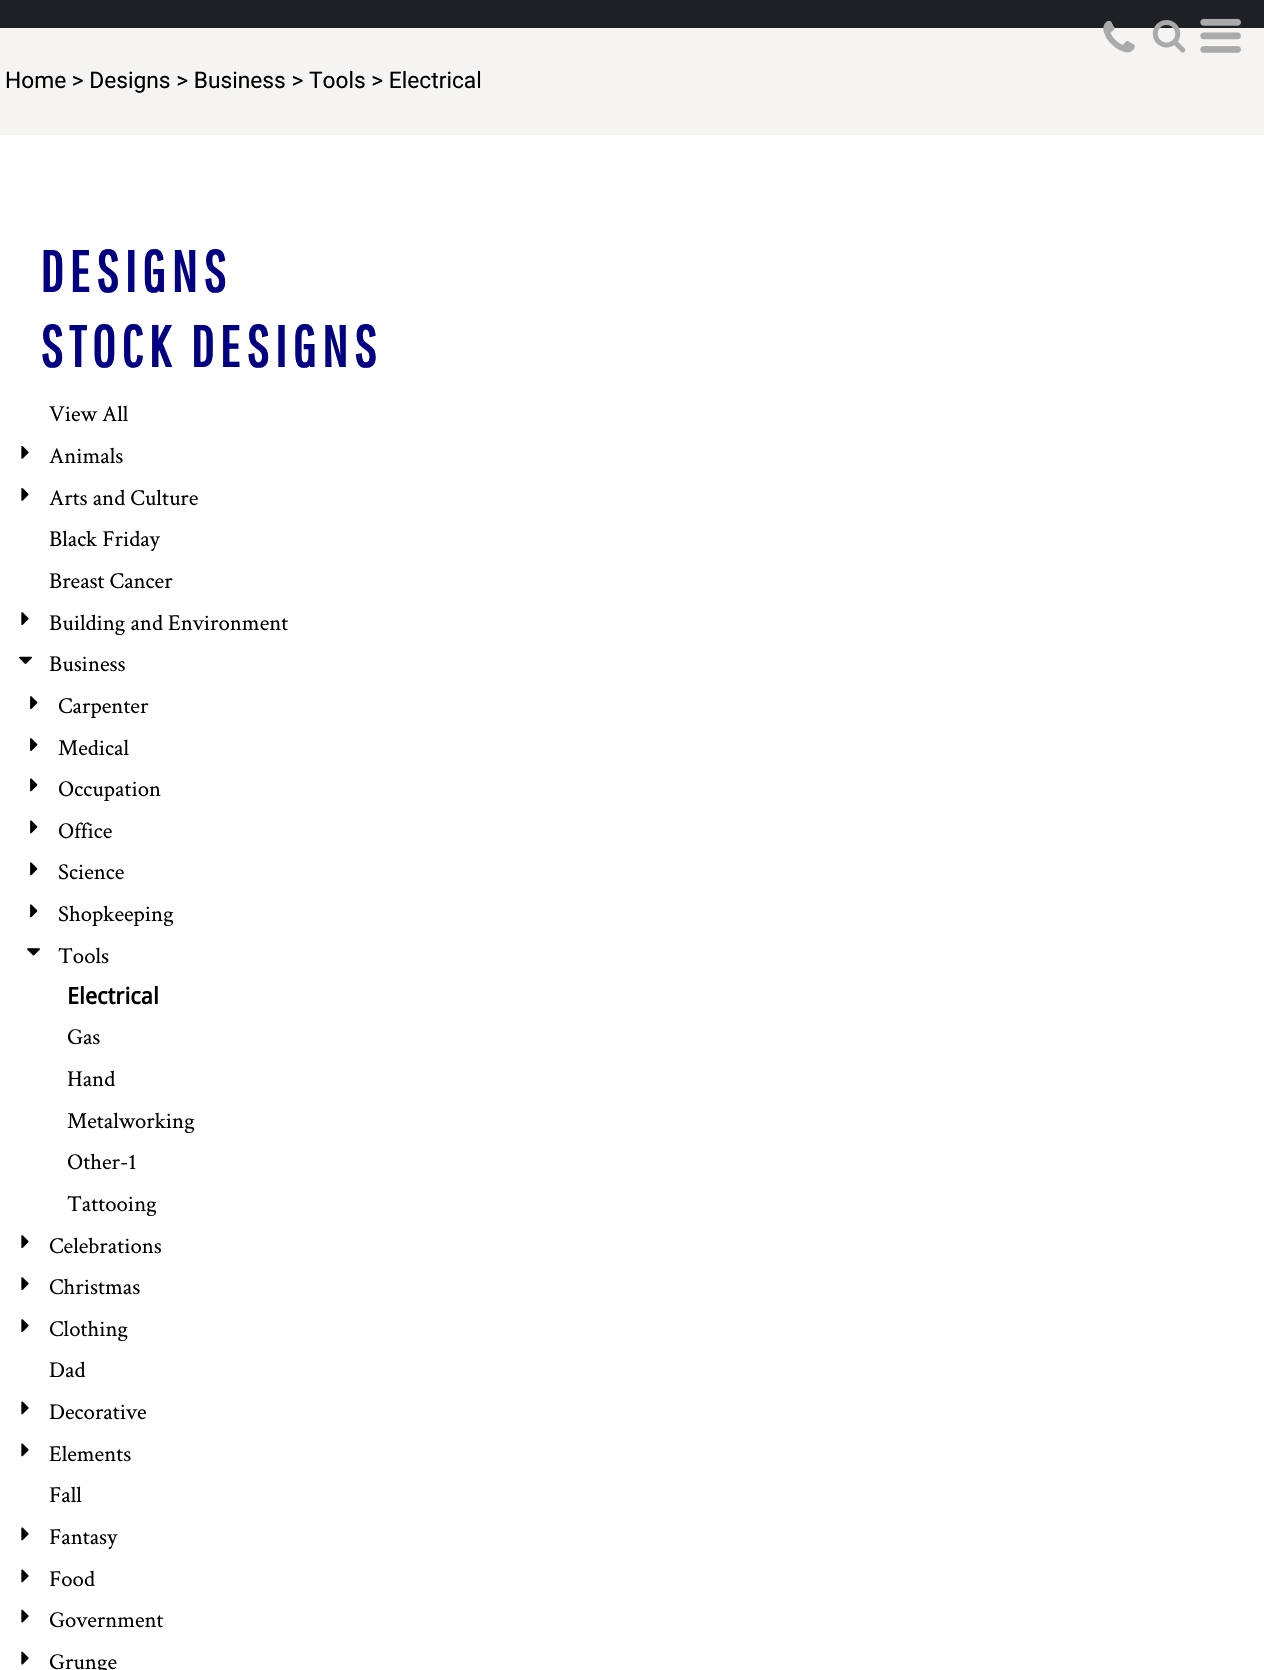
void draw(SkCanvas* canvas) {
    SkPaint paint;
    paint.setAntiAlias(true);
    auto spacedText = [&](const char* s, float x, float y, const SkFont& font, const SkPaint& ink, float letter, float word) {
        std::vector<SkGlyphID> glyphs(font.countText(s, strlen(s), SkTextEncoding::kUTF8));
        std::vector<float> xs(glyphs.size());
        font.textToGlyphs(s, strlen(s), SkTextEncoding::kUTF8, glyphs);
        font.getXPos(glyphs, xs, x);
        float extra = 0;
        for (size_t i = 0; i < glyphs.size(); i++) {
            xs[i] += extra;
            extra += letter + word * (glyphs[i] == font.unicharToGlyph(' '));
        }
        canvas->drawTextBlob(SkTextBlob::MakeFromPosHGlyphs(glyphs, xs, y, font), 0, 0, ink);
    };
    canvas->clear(0xFFF5F4F2);
    paint.setColor(0xFF1E2024);
    canvas->drawRect(SkRect::MakeXYWH(0, 0, 1264, 28), paint);
    SkFont font1(fontMgr->matchFamilyStyle("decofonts", SkFontStyle::Normal()), 40);
    font1.setSubpixel(true);
    paint.setColor(0xFFAAAAAA);
    canvas->drawString(";", 1099, 58, font1, paint);
    canvas->drawImageRect(SkImages::DeferredFromEncodedData(SkData::MakeFromFileName("img1.png")), SkRect::MakeXYWH(1152, 20, 34, 33), SkSamplingOptions());
    canvas->drawImageRect(SkImages::DeferredFromEncodedData(SkData::MakeFromFileName("img2.png")), SkRect::MakeXYWH(1200, 18, 41, 35), SkSamplingOptions());
    SkFont font2(fontMgr->matchFamilyStyle("Roboto", SkFontStyle::Normal()), 22.75f);
    font2.setSubpixel(true);
    paint.setColor(0xFF000000);
    canvas->drawString("Home > Designs > Business > Tools > Electrical", 5, 88, font2, paint);
    paint.setColor(0xFFFFFFFF);
    canvas->drawRect(SkRect::MakeXYWH(0, 135, 1264, 1535), paint);
    SkFont font3(fontMgr->matchFamilyStyle("Pathway Gothic One", SkFontStyle::Bold()), 57.75f);
    font3.setSubpixel(true);
    paint.setColor(0xFF000080);
    spacedText("DESIGNS", 40, 292, font3, paint, 5.75f, 0);
    spacedText("STOCK DESIGNS", 40, 367, font3, paint, 5.75f, 0);
    SkFont font4(fontMgr->matchFamilyStyle("Crimson Text", SkFontStyle::Normal()), 22.75f);
    font4.setSubpixel(true);
    paint.setColor(0xFF000000);
    canvas->drawString("View All", 49, 421, font4, paint);
    canvas->drawImageRect(SkImages::DeferredFromEncodedData(SkData::MakeFromFileName("img3.png")), SkRect::MakeXYWH(21, 445, 8, 14), SkSamplingOptions());
    canvas->drawString("Animals", 49, 463, font4, paint);
    canvas->drawImageRect(SkImages::DeferredFromEncodedData(SkData::MakeFromFileName("img3.png")), SkRect::MakeXYWH(21, 487, 8, 14), SkSamplingOptions());
    canvas->drawString("Arts and Culture", 49, 505, font4, paint);
    canvas->drawString("Black Friday", 49, 546, font4, paint);
    canvas->drawString("Breast Cancer", 49, 588, font4, paint);
    canvas->drawImageRect(SkImages::DeferredFromEncodedData(SkData::MakeFromFileName("img4.png")), SkRect::MakeXYWH(21, 612, 8, 14), SkSamplingOptions());
    canvas->drawString("Building and Environment", 49, 630, font4, paint);
    canvas->drawImageRect(SkImages::DeferredFromEncodedData(SkData::MakeFromFileName("img5.png")), SkRect::MakeXYWH(19, 656, 13, 8), SkSamplingOptions());
    canvas->drawString("Business", 49, 671, font4, paint);
    canvas->drawImageRect(SkImages::DeferredFromEncodedData(SkData::MakeFromFileName("img6.png")), SkRect::MakeXYWH(30, 696, 8, 14), SkSamplingOptions());
    canvas->drawString("Carpenter", 58, 713, font4, paint);
    canvas->drawImageRect(SkImages::DeferredFromEncodedData(SkData::MakeFromFileName("img6.png")), SkRect::MakeXYWH(30, 738, 8, 14), SkSamplingOptions());
    canvas->drawString("Medical", 58, 755, font4, paint);
    canvas->drawImageRect(SkImages::DeferredFromEncodedData(SkData::MakeFromFileName("img7.png")), SkRect::MakeXYWH(30, 778, 8, 14), SkSamplingOptions());
    canvas->drawString("Occupation", 58, 796, font4, paint);
    canvas->drawImageRect(SkImages::DeferredFromEncodedData(SkData::MakeFromFileName("img7.png")), SkRect::MakeXYWH(30, 820, 8, 14), SkSamplingOptions());
    canvas->drawString("Office", 58, 838, font4, paint);
    canvas->drawImageRect(SkImages::DeferredFromEncodedData(SkData::MakeFromFileName("img7.png")), SkRect::MakeXYWH(30, 862, 8, 14), SkSamplingOptions());
    canvas->drawString("Science", 58, 879, font4, paint);
    canvas->drawImageRect(SkImages::DeferredFromEncodedData(SkData::MakeFromFileName("img7.png")), SkRect::MakeXYWH(30, 904, 8, 14), SkSamplingOptions());
    canvas->drawString("Shopkeeping", 58, 921, font4, paint);
    canvas->drawImageRect(SkImages::DeferredFromEncodedData(SkData::MakeFromFileName("img8.png")), SkRect::MakeXYWH(27, 948, 13, 8), SkSamplingOptions());
    canvas->drawString("Tools", 58, 963, font4, paint);
    SkFont font5(fontMgr->matchFamilyStyle("Droid Sans", SkFontStyle::Bold()), 22.75f);
    font5.setSubpixel(true);
    canvas->drawString("Electrical", 67, 1004, font5, paint);
    canvas->drawString("Gas", 67, 1044, font4, paint);
    canvas->drawString("Hand", 67, 1086, font4, paint);
    canvas->drawString("Metalworking", 67, 1128, font4, paint);
    canvas->drawString("Other-1", 67, 1169, font4, paint);
    canvas->drawString("Tattooing", 67, 1211, font4, paint);
    canvas->drawImageRect(SkImages::DeferredFromEncodedData(SkData::MakeFromFileName("img4.png")), SkRect::MakeXYWH(21, 1235, 8, 14), SkSamplingOptions());
    canvas->drawString("Celebrations", 49, 1253, font4, paint);
    canvas->drawImageRect(SkImages::DeferredFromEncodedData(SkData::MakeFromFileName("img4.png")), SkRect::MakeXYWH(21, 1277, 8, 14), SkSamplingOptions());
    canvas->drawString("Christmas", 49, 1294, font4, paint);
    canvas->drawImageRect(SkImages::DeferredFromEncodedData(SkData::MakeFromFileName("img4.png")), SkRect::MakeXYWH(21, 1319, 8, 14), SkSamplingOptions());
    canvas->drawString("Clothing", 49, 1336, font4, paint);
    canvas->drawString("Dad", 49, 1377, font4, paint);
    canvas->drawImageRect(SkImages::DeferredFromEncodedData(SkData::MakeFromFileName("img9.png")), SkRect::MakeXYWH(21, 1401, 8, 14), SkSamplingOptions());
    canvas->drawString("Decorative", 49, 1419, font4, paint);
    canvas->drawImageRect(SkImages::DeferredFromEncodedData(SkData::MakeFromFileName("img9.png")), SkRect::MakeXYWH(21, 1443, 8, 14), SkSamplingOptions());
    canvas->drawString("Elements", 49, 1461, font4, paint);
    canvas->drawString("Fall", 49, 1502, font4, paint);
    canvas->drawImageRect(SkImages::DeferredFromEncodedData(SkData::MakeFromFileName("img9.png")), SkRect::MakeXYWH(21, 1527, 8, 14), SkSamplingOptions());
    canvas->drawString("Fantasy", 49, 1544, font4, paint);
    canvas->drawImageRect(SkImages::DeferredFromEncodedData(SkData::MakeFromFileName("img9.png")), SkRect::MakeXYWH(21, 1569, 8, 14), SkSamplingOptions());
    canvas->drawString("Food", 49, 1586, font4, paint);
    canvas->drawImageRect(SkImages::DeferredFromEncodedData(SkData::MakeFromFileName("img10.png")), SkRect::MakeXYWH(21, 1609, 8, 14), SkSamplingOptions());
    canvas->drawString("Government", 49, 1627, font4, paint);
    canvas->drawImageRect(SkImages::DeferredFromEncodedData(SkData::MakeFromFileName("img10.png")), SkRect::MakeXYWH(21, 1651, 8, 14), SkSamplingOptions());
    canvas->drawString("Grunge", 49, 1669, font4, paint);
}
